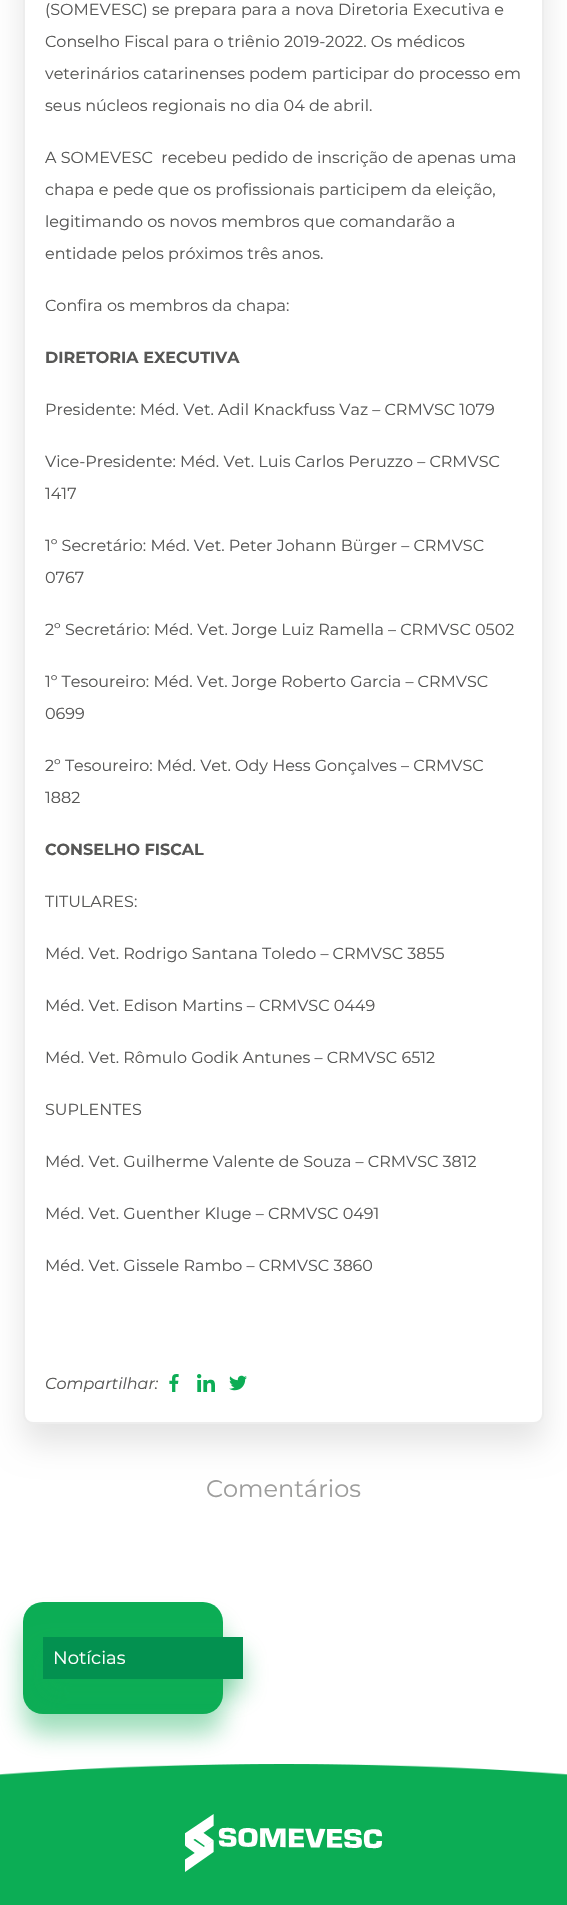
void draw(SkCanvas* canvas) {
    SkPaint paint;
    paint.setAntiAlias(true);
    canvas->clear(0xFFFFFFFF);
    paint.setColor(0x1A000000);
    paint.setMaskFilter(SkMaskFilter::MakeBlur(kNormal_SkBlurStyle, 15));
    canvas->drawRoundRect(SkRect::MakeXYWH(23, -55, 521, 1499), 10, 10, paint);
    paint.setMaskFilter(nullptr);
    paint.setColor(0xFFFFFFFF);
    canvas->drawRoundRect(SkRect::MakeXYWH(24, -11, 519, 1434), 9, 9, paint);
    paint.setStyle(SkPaint::kStroke_Style);
    paint.setStrokeWidth(2);
    paint.setColor(0xFFEDEDED);
    canvas->drawRoundRect(SkRect::MakeXYWH(24, -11, 519, 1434), 9, 9, paint);
    SkFont font1(fontMgr->matchFamilyStyle("Montserrat", SkFontStyle::Normal()), 16);
    font1.setSubpixel(true);
    paint.setStyle(SkPaint::kFill_Style);
    paint.setColor(0xFF575756);
    canvas->drawString("(SOMEVESC) se prepara para a nova Diretoria Executiva e", 45, 15, font1, paint);
    canvas->drawString("Conselho Fiscal para o triênio 2019-2022. Os médicos", 45, 47, font1, paint);
    canvas->drawString("veterinários catarinenses podem participar do processo em", 45, 79, font1, paint);
    canvas->drawString("seus núcleos regionais no dia 04 de abril.", 45, 111, font1, paint);
    canvas->drawString("A SOMEVESC  recebeu pedido de inscrição de apenas uma", 45, 163, font1, paint);
    canvas->drawString("chapa e pede que os profissionais participem da eleição,", 45, 195, font1, paint);
    canvas->drawString("legitimando os novos membros que comandarão a", 45, 227, font1, paint);
    canvas->drawString("entidade pelos próximos três anos.", 45, 259, font1, paint);
    canvas->drawString("Confira os membros da chapa:", 45, 311, font1, paint);
    SkFont font2(fontMgr->matchFamilyStyle("Montserrat", SkFontStyle::Bold()), 16);
    font2.setSubpixel(true);
    canvas->drawString("DIRETORIA EXECUTIVA", 45, 363, font2, paint);
    canvas->drawString("Presidente: Méd. Vet. Adil Knackfuss Vaz – CRMVSC 1079", 45, 415, font1, paint);
    canvas->drawString("Vice-Presidente: Méd. Vet. Luis Carlos Peruzzo – CRMVSC", 45, 467, font1, paint);
    canvas->drawString("1417", 45, 499, font1, paint);
    canvas->drawString("1º Secretário: Méd. Vet. Peter Johann Bürger – CRMVSC", 45, 551, font1, paint);
    canvas->drawString("0767", 45, 583, font1, paint);
    canvas->drawString("2º Secretário: Méd. Vet. Jorge Luiz Ramella – CRMVSC 0502", 45, 635, font1, paint);
    canvas->drawString("1º Tesoureiro: Méd. Vet. Jorge Roberto Garcia – CRMVSC", 45, 687, font1, paint);
    canvas->drawString("0699", 45, 719, font1, paint);
    canvas->drawString("2º Tesoureiro: Méd. Vet. Ody Hess Gonçalves – CRMVSC", 45, 771, font1, paint);
    canvas->drawString("1882", 45, 803, font1, paint);
    canvas->drawString("CONSELHO FISCAL", 45, 855, font2, paint);
    canvas->drawString("TITULARES:", 45, 907, font1, paint);
    canvas->drawString("Méd. Vet. Rodrigo Santana Toledo – CRMVSC 3855", 45, 959, font1, paint);
    canvas->drawString("Méd. Vet. Edison Martins – CRMVSC 0449", 45, 1011, font1, paint);
    canvas->drawString("Méd. Vet. Rômulo Godik Antunes – CRMVSC 6512", 45, 1063, font1, paint);
    canvas->drawString("SUPLENTES", 45, 1115, font1, paint);
    canvas->drawString("Méd. Vet. Guilherme Valente de Souza – CRMVSC 3812", 45, 1167, font1, paint);
    canvas->drawString("Méd. Vet. Guenther Kluge – CRMVSC 0491", 45, 1219, font1, paint);
    canvas->drawString("Méd. Vet. Gissele Rambo – CRMVSC 3860", 45, 1271, font1, paint);
    SkFont font3(fontMgr->matchFamilyStyle("Montserrat", SkFontStyle::Italic()), 16);
    font3.setSubpixel(true);
    canvas->drawString("Compartilhar:", 45, 1389, font3, paint);
    canvas->drawImageRect(SkImages::DeferredFromEncodedData(SkData::MakeFromFileName("img1.png")), SkRect::MakeXYWH(169, 1374, 10, 18), SkSamplingOptions());
    canvas->drawImageRect(SkImages::DeferredFromEncodedData(SkData::MakeFromFileName("img2.png")), SkRect::MakeXYWH(197, 1374, 18, 18), SkSamplingOptions());
    canvas->drawImageRect(SkImages::DeferredFromEncodedData(SkData::MakeFromFileName("img3.png")), SkRect::MakeXYWH(229, 1375, 18, 16), SkSamplingOptions());
    SkFont font4(fontMgr->matchFamilyStyle("Montserrat", SkFontStyle::Normal()), 24);
    font4.setSubpixel(true);
    paint.setColor(0xFF9D9D9C);
    canvas->drawString("Comentários", 206, 1497, font4, paint);
    canvas->drawImageRect(SkImages::DeferredFromEncodedData(SkData::MakeFromFileName("img4.png")), SkRect::MakeXYWH(0, 1764, 567, 141), SkSamplingOptions());
    paint.setColor(0x660CAD55);
    paint.setMaskFilter(SkMaskFilter::MakeBlur(kNormal_SkBlurStyle, 12.5f));
    canvas->drawRoundRect(SkRect::MakeXYWH(23, 1622, 200, 112), 20, 20, paint);
    paint.setMaskFilter(nullptr);
    paint.setColor(0xFF0CAD55);
    canvas->drawRoundRect(SkRect::MakeXYWH(23, 1602, 200, 112), 20, 20, paint);
    paint.setColor(0x660CAD55);
    paint.setMaskFilter(SkMaskFilter::MakeBlur(kNormal_SkBlurStyle, 12.5f));
    canvas->drawRect(SkRect::MakeXYWH(43, 1652, 200, 42), paint);
    paint.setMaskFilter(nullptr);
    paint.setColor(0xFF039150);
    canvas->drawRect(SkRect::MakeXYWH(43, 1637, 200, 42), paint);
    SkFont font5(fontMgr->matchFamilyStyle("Montserrat", SkFontStyle::Normal()), 18);
    font5.setSubpixel(true);
    paint.setColor(0xFFFFFFFF);
    canvas->drawString("Notícias", 53, 1664, font5, paint);
    canvas->drawImageRect(SkImages::DeferredFromEncodedData(SkData::MakeFromFileName("img5.png")), SkRect::MakeXYWH(185, 1814, 197, 58), SkSamplingOptions());
}
